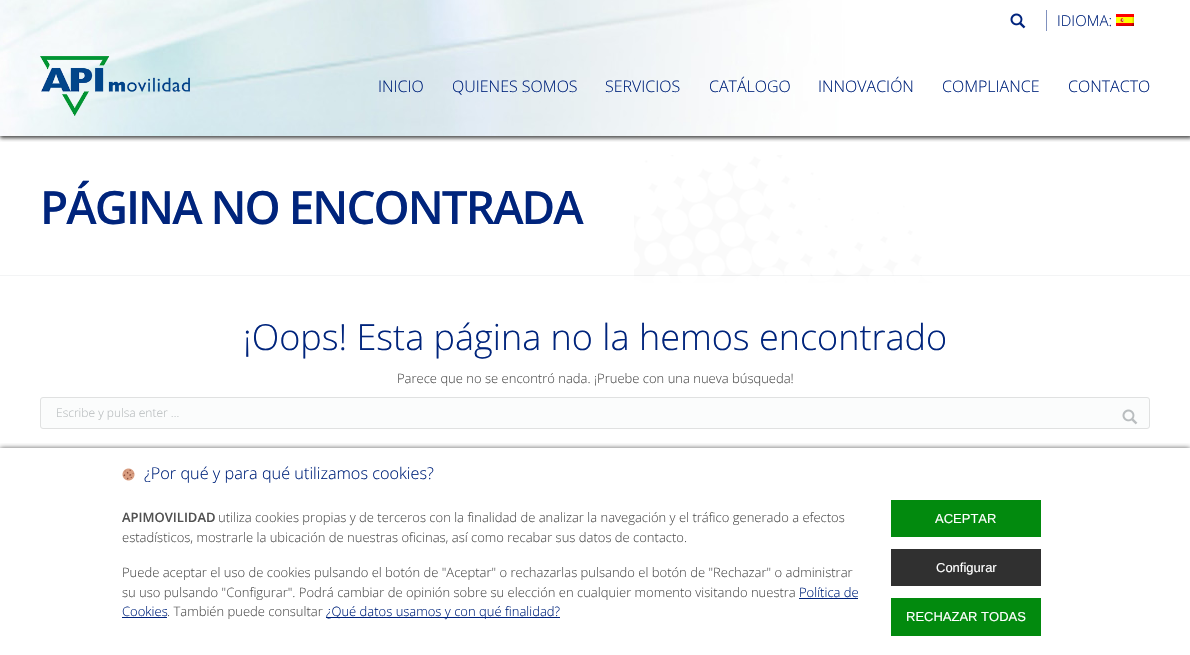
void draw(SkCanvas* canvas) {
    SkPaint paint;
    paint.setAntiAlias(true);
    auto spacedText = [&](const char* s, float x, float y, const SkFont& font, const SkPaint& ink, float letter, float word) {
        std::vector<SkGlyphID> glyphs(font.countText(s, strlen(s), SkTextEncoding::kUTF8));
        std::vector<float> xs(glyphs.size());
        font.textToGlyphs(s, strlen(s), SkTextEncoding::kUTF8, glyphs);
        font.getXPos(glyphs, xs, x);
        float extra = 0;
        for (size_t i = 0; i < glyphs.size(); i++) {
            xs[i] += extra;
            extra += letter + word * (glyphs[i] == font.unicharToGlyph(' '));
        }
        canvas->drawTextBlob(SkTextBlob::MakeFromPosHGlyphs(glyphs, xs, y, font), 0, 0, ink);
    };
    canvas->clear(0xFFFFFFFF);
    paint.setColor(0xFFF3F4F5);
    canvas->drawRect(SkRect::MakeXYWH(0, 275, 1190, 1), paint);
    canvas->save();
    canvas->clipRect(SkRect::MakeXYWH(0, 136, 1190, 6));
    paint.setColor(0xBF000000);
    paint.setMaskFilter(SkMaskFilter::MakeBlur(kNormal_SkBlurStyle, 2));
    canvas->drawRect(SkRect::MakeXYWH(0, 0, 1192, 138), paint);
    paint.setMaskFilter(nullptr);
    canvas->restore();
    canvas->drawImageRect(SkImages::DeferredFromEncodedData(SkData::MakeFromFileName("img1.png")), SkRect::MakeXYWH(0, 0, 1183, 136), SkSamplingOptions());
    canvas->drawImageRect(SkImages::DeferredFromEncodedData(SkData::MakeFromFileName("img2.png")), SkRect::MakeXYWH(1010, 13, 16, 16), SkSamplingOptions());
    paint.setColor(0xFF8091BE);
    canvas->drawRect(SkRect::MakeXYWH(1046, 10, 1, 21), paint);
    SkFont font1(fontMgr->matchFamilyStyle("Open Sans", SkFontStyle(300, SkFontStyle::kNormal_Width, SkFontStyle::kUpright_Slant)), 15);
    font1.setSubpixel(true);
    paint.setColor(0xFF00247C);
    canvas->drawString("IDIOMA:", 1057, 26, font1, paint);
    canvas->drawImageRect(SkImages::DeferredFromEncodedData(SkData::MakeFromFileName("img3.png")), SkRect::MakeXYWH(1116, 14, 18, 12), SkSamplingOptions());
    canvas->drawImageRect(SkImages::DeferredFromEncodedData(SkData::MakeFromFileName("img4.png")), SkRect::MakeXYWH(40, 56, 150, 60), SkSamplingOptions());
    SkFont font2(fontMgr->matchFamilyStyle("Open Sans", SkFontStyle(300, SkFontStyle::kNormal_Width, SkFontStyle::kUpright_Slant)), 16);
    font2.setSubpixel(true);
    canvas->drawString("INICIO", 378, 92, font2, paint);
    canvas->drawString("QUIENES SOMOS", 452, 92, font2, paint);
    canvas->drawString("SERVICIOS", 605, 92, font2, paint);
    canvas->drawString("CATÁLOGO", 709, 92, font2, paint);
    canvas->drawString("INNOVACIÓN", 818, 92, font2, paint);
    canvas->drawString("COMPLIANCE", 942, 92, font2, paint);
    canvas->drawString("CONTACTO", 1068, 92, font2, paint);
    canvas->drawImageRect(SkImages::DeferredFromEncodedData(SkData::MakeFromFileName("img5.png")), SkRect::MakeXYWH(634, 155, 298, 128), SkSamplingOptions());
    SkFont font3(fontMgr->matchFamilyStyle("Open Sans", SkFontStyle(600, SkFontStyle::kNormal_Width, SkFontStyle::kUpright_Slant)), 46);
    font3.setSubpixel(true);
    spacedText("PÁGINA NO ENCONTRADA", 40, 224, font3, paint, -2, 0);
    {
        const SkColor colors[] = {0xBFFFFFFF, 0xCCFFFFFF, 0xDBFFFFFF, 0xE6FFFFFF, 0xF0FFFFFF, 0xFAFFFFFF, 0xFCFFFFFF, 0xFFFFFFFF};
        const float stops[] = {0, 0.01f, 0.02f, 0.03f, 0.05f, 0.09f, 0.1f, 0.12f};
        const SkPoint ends[] = {{595, 276}, {595, 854}};
        paint.setShader(SkGradientShader::MakeLinear(ends, colors, stops, 8, SkTileMode::kClamp));
        paint.setAlpha(255);
    }
    canvas->drawRect(SkRect::MakeXYWH(634, 276, 298, 7), paint);
    SkFont font4(fontMgr->matchFamilyStyle("Open Sans", SkFontStyle(300, SkFontStyle::kNormal_Width, SkFontStyle::kUpright_Slant)), 36);
    font4.setSubpixel(true);
    paint.setShader(nullptr);
    paint.setColor(0xFF00247C);
    canvas->drawString("¡Oops! Esta página no la hemos encontrado", 243, 350, font4, paint);
    SkFont font5(fontMgr->matchFamilyStyle("Open Sans", SkFontStyle(300, SkFontStyle::kNormal_Width, SkFontStyle::kUpright_Slant)), 13);
    font5.setSubpixel(true);
    paint.setColor(0xFF515151);
    canvas->drawString("Parece que no se encontró nada. ¡Pruebe con una nueva búsqueda!", 397, 383, font5, paint);
    paint.setColor(0xFFFBFCFC);
    canvas->drawRoundRect(SkRect::MakeXYWH(40.5f, 397.5f, 1109, 31), 2.5f, 2.5f, paint);
    paint.setStyle(SkPaint::kStroke_Style);
    paint.setStrokeWidth(1);
    paint.setColor(0xFFE0E1E1);
    canvas->drawRoundRect(SkRect::MakeXYWH(40.5f, 397.5f, 1109, 31), 2.5f, 2.5f, paint);
    SkFont font6(fontMgr->matchFamilyStyle("Open Sans", SkFontStyle(300, SkFontStyle::kNormal_Width, SkFontStyle::kUpright_Slant)), 12);
    font6.setSubpixel(true);
    paint.setStyle(SkPaint::kFill_Style);
    paint.setColor(0xFFB8BCBE);
    canvas->drawString("Escribe y pulsa enter …", 56, 417, font6, paint);
    canvas->drawImageRect(SkImages::DeferredFromEncodedData(SkData::MakeFromFileName("img6.png")), SkRect::MakeXYWH(1122, 409, 16, 16), SkSamplingOptions());
    canvas->save();
    canvas->clipRect(SkRect::MakeXYWH(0, 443, 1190, 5));
    paint.setColor(0xFF5D5D5D);
    paint.setMaskFilter(SkMaskFilter::MakeBlur(kNormal_SkBlurStyle, 2.5f));
    canvas->drawRect(SkRect::MakeXYWH(0, 448, 1190, 207), paint);
    paint.setMaskFilter(nullptr);
    canvas->restore();
    canvas->drawImageRect(SkImages::DeferredFromEncodedData(SkData::MakeFromFileName("img7.png")), SkRect::MakeXYWH(122, 468, 13, 13), SkSamplingOptions());
    SkFont font7(fontMgr->matchFamilyStyle("Open Sans", SkFontStyle(300, SkFontStyle::kNormal_Width, SkFontStyle::kUpright_Slant)), 16.25f);
    font7.setSubpixel(true);
    paint.setColor(0xFF00247C);
    canvas->drawString("¿Por qué y para qué utilizamos cookies?", 144, 479, font7, paint);
    SkFont font8(fontMgr->matchFamilyStyle("Open Sans", SkFontStyle(600, SkFontStyle::kNormal_Width, SkFontStyle::kUpright_Slant)), 13);
    font8.setSubpixel(true);
    paint.setColor(0xFF515151);
    canvas->drawString("APIMOVILIDAD", 122, 522, font8, paint);
    canvas->drawString("utiliza cookies propias y de terceros con la finalidad de analizar la navegación y el tráfico generado a efectos", 218, 522, font5, paint);
    canvas->drawString("estadísticos, mostrarle la ubicación de nuestras oficinas, así como recabar sus datos de contacto.", 122, 542, font5, paint);
    canvas->drawString("Puede aceptar el uso de cookies pulsando el botón de \"Aceptar\" o rechazarlas pulsando el botón de \"Rechazar\" o administrar", 122, 577, font5, paint);
    canvas->drawString("su uso pulsando \"Configurar\". Podrá cambiar de opinión sobre su elección en cualquier momento visitando nuestra", 122, 597, font5, paint);
    paint.setColor(0xFF00247C);
    canvas->drawString("Política de", 799, 597, font5, paint);
    paint.setColor(0xFF00237D);
    canvas->drawRect(SkRect::MakeXYWH(799, 598, 59, 1), paint);
    paint.setColor(0xFF00247C);
    canvas->drawString("Cookies", 122, 616, font5, paint);
    paint.setColor(0xFF00237D);
    canvas->drawRect(SkRect::MakeXYWH(122, 617, 45, 1), paint);
    paint.setColor(0xFF515151);
    canvas->drawString(". También puede consultar", 167, 616, font5, paint);
    paint.setColor(0xFF00237D);
    canvas->drawRect(SkRect::MakeXYWH(326, 617, 234, 1), paint);
    paint.setColor(0xFF00247C);
    canvas->drawString("¿Qué datos usamos y con qué finalidad?", 326, 616, font5, paint);
    paint.setColor(0xFF028A0E);
    canvas->drawRect(SkRect::MakeXYWH(891, 500, 150, 37), paint);
    SkFont font9(fontMgr->matchFamilyStyle("Liberation Sans", SkFontStyle::Normal()), 13);
    font9.setSubpixel(true);
    paint.setColor(0xFFFFFFFF);
    canvas->drawString("ACEPTAR", 935, 523, font9, paint);
    paint.setColor(0xFF303030);
    canvas->drawRect(SkRect::MakeXYWH(891, 549, 150, 37), paint);
    paint.setColor(0xFFFFFFFF);
    canvas->drawString("Configurar", 936, 572, font9, paint);
    paint.setColor(0xFF028A0E);
    canvas->drawRect(SkRect::MakeXYWH(891, 598, 150, 38), paint);
    paint.setColor(0xFFFFFFFF);
    canvas->drawString("RECHAZAR TODAS", 906, 621, font9, paint);
}
